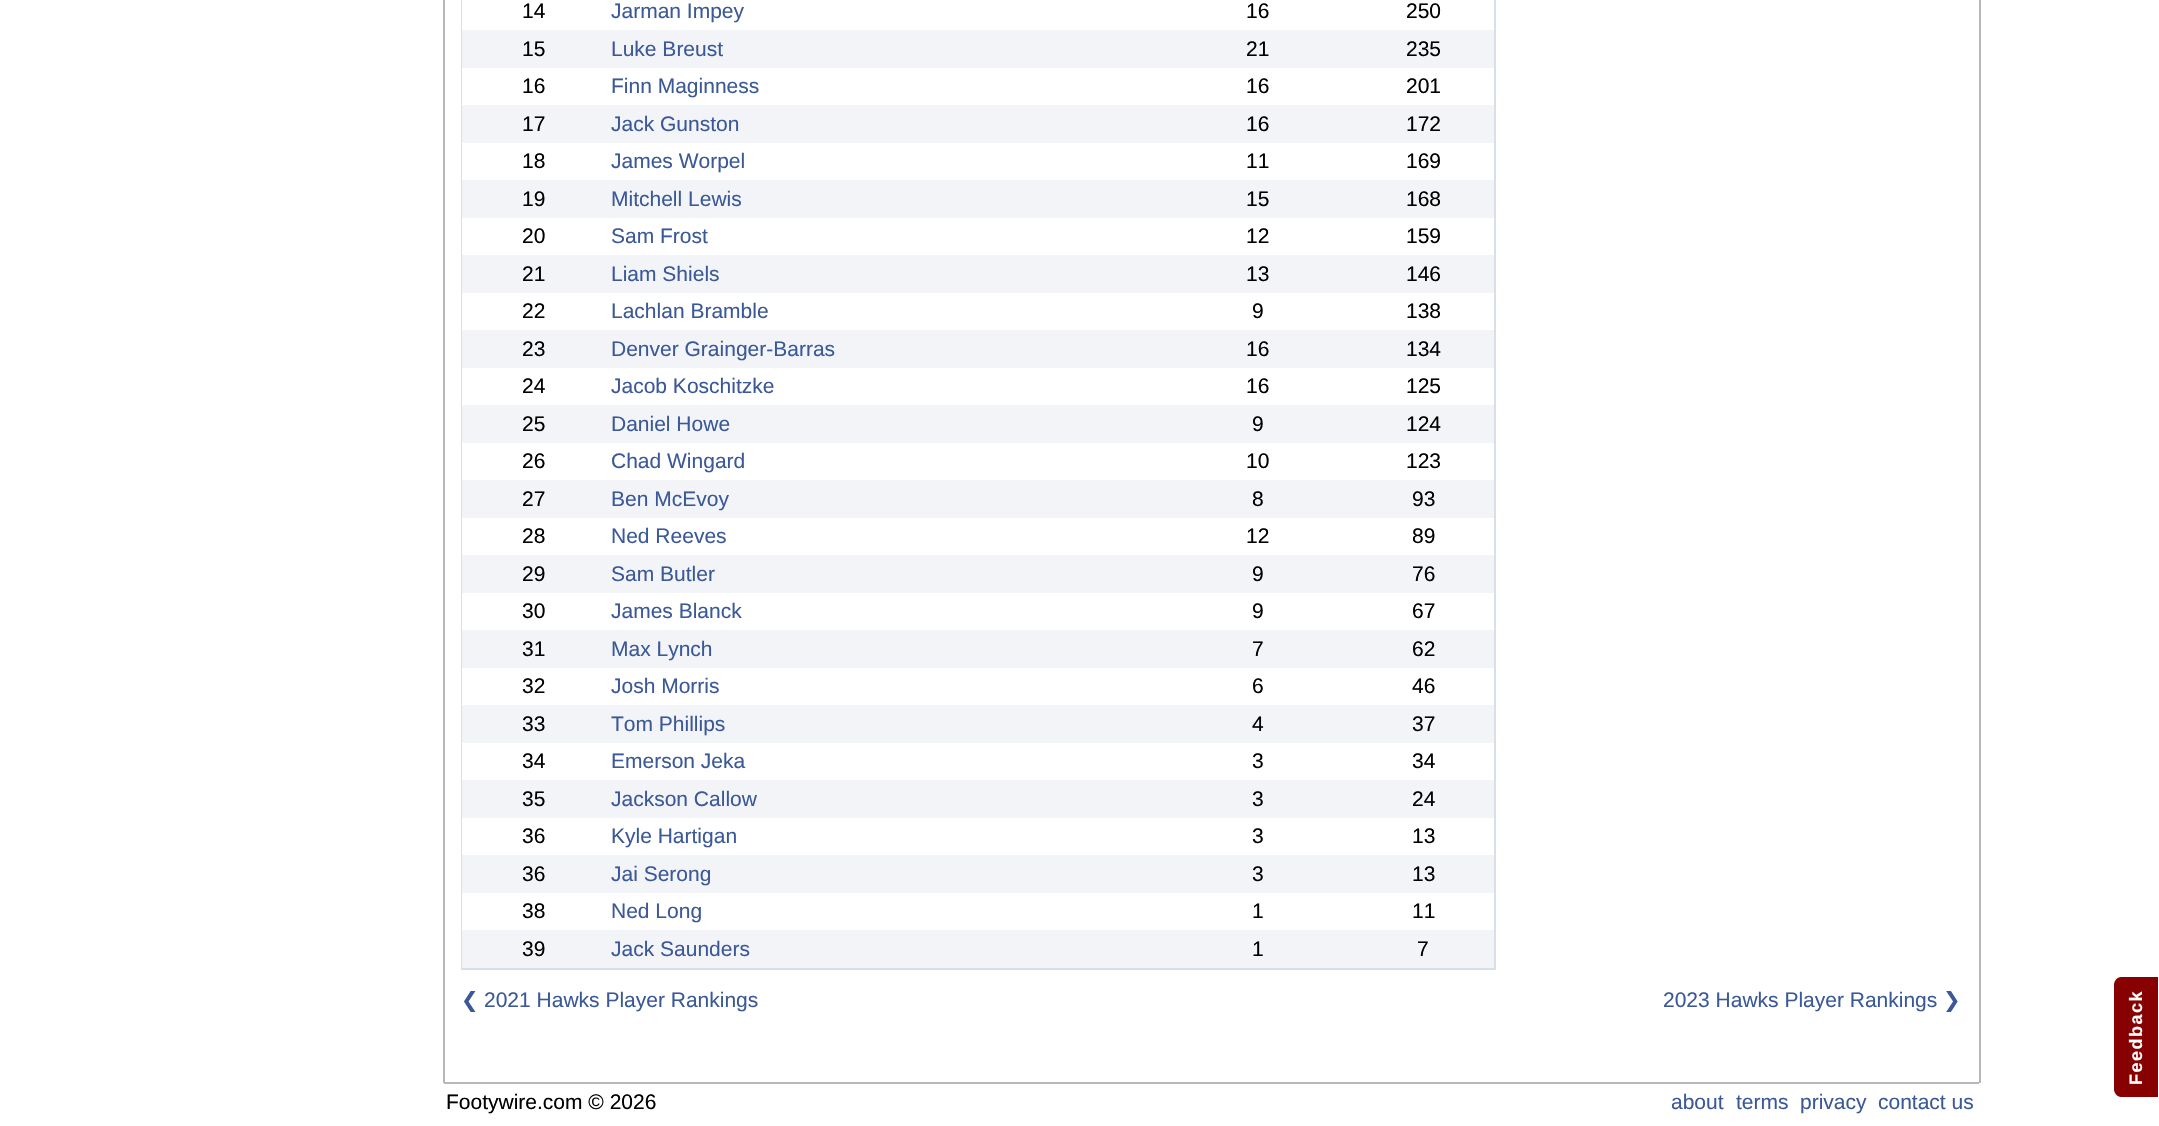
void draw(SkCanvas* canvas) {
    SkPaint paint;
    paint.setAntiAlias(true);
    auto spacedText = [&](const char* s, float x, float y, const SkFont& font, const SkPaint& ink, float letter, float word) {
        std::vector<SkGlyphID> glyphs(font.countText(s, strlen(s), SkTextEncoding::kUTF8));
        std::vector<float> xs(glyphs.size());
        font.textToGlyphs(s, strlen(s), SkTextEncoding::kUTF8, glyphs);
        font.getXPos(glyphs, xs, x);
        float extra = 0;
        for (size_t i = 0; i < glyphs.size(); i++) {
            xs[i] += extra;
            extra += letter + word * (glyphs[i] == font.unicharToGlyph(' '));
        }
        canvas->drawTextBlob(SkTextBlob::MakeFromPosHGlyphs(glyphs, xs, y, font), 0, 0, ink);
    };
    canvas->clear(0xFFFFFFFF);
    paint.setColor(0xFFB7B7B7);
    canvas->drawRect(SkRect::MakeXYWH(443, 0, 2, 1083), paint);
    paint.setColor(0xFFD8DFEA);
    canvas->drawRect(SkRect::MakeXYWH(461, 0, 1, 968), paint);
    SkFont font1(fontMgr->matchFamilyStyle("Liberation Sans", SkFontStyle::Normal()), 21);
    font1.setSubpixel(true);
    paint.setColor(0xFF000000);
    canvas->drawString("14", 522, 18, font1, paint);
    paint.setColor(0xFF3B5998);
    canvas->drawString("Jarman Impey", 611, 18, font1, paint);
    paint.setColor(0xFF000000);
    canvas->drawString("16", 1246, 18, font1, paint);
    canvas->drawString("250", 1406, 18, font1, paint);
    paint.setColor(0xFFF2F4F7);
    canvas->drawRect(SkRect::MakeXYWH(462, 30, 1032, 38), paint);
    paint.setColor(0xFF000000);
    canvas->drawString("15", 522, 56, font1, paint);
    paint.setColor(0xFF3B5998);
    canvas->drawString("Luke Breust", 611, 56, font1, paint);
    paint.setColor(0xFF000000);
    canvas->drawString("21", 1246, 56, font1, paint);
    canvas->drawString("235", 1406, 56, font1, paint);
    canvas->drawString("16", 522, 93, font1, paint);
    paint.setColor(0xFF3B5998);
    canvas->drawString("Finn Maginness", 611, 93, font1, paint);
    paint.setColor(0xFF000000);
    canvas->drawString("16", 1246, 93, font1, paint);
    canvas->drawString("201", 1406, 93, font1, paint);
    paint.setColor(0xFFF2F4F7);
    canvas->drawRect(SkRect::MakeXYWH(462, 105, 1032, 38), paint);
    paint.setColor(0xFF000000);
    canvas->drawString("17", 522, 131, font1, paint);
    paint.setColor(0xFF3B5998);
    canvas->drawString("Jack Gunston", 611, 131, font1, paint);
    paint.setColor(0xFF000000);
    canvas->drawString("16", 1246, 131, font1, paint);
    canvas->drawString("172", 1406, 131, font1, paint);
    canvas->drawString("18", 522, 168, font1, paint);
    paint.setColor(0xFF3B5998);
    canvas->drawString("James Worpel", 611, 168, font1, paint);
    paint.setColor(0xFF000000);
    canvas->drawString("11", 1246, 168, font1, paint);
    canvas->drawString("169", 1406, 168, font1, paint);
    paint.setColor(0xFFF2F4F7);
    canvas->drawRect(SkRect::MakeXYWH(462, 180, 1032, 38), paint);
    paint.setColor(0xFF000000);
    canvas->drawString("19", 522, 206, font1, paint);
    paint.setColor(0xFF3B5998);
    canvas->drawString("Mitchell Lewis", 611, 206, font1, paint);
    paint.setColor(0xFF000000);
    canvas->drawString("15", 1246, 206, font1, paint);
    canvas->drawString("168", 1406, 206, font1, paint);
    canvas->drawString("20", 522, 243, font1, paint);
    paint.setColor(0xFF3B5998);
    canvas->drawString("Sam Frost", 611, 243, font1, paint);
    paint.setColor(0xFF000000);
    canvas->drawString("12", 1246, 243, font1, paint);
    canvas->drawString("159", 1406, 243, font1, paint);
    paint.setColor(0xFFF2F4F7);
    canvas->drawRect(SkRect::MakeXYWH(462, 255, 1032, 38), paint);
    paint.setColor(0xFF000000);
    canvas->drawString("21", 522, 281, font1, paint);
    paint.setColor(0xFF3B5998);
    canvas->drawString("Liam Shiels", 611, 281, font1, paint);
    paint.setColor(0xFF000000);
    canvas->drawString("13", 1246, 281, font1, paint);
    canvas->drawString("146", 1406, 281, font1, paint);
    canvas->drawString("22", 522, 318, font1, paint);
    paint.setColor(0xFF3B5998);
    canvas->drawString("Lachlan Bramble", 611, 318, font1, paint);
    paint.setColor(0xFF000000);
    canvas->drawString("9", 1252, 318, font1, paint);
    canvas->drawString("138", 1406, 318, font1, paint);
    paint.setColor(0xFFF2F4F7);
    canvas->drawRect(SkRect::MakeXYWH(462, 330, 1032, 38), paint);
    paint.setColor(0xFF000000);
    canvas->drawString("23", 522, 356, font1, paint);
    paint.setColor(0xFF3B5998);
    canvas->drawString("Denver Grainger-Barras", 611, 356, font1, paint);
    paint.setColor(0xFF000000);
    canvas->drawString("16", 1246, 356, font1, paint);
    canvas->drawString("134", 1406, 356, font1, paint);
    canvas->drawString("24", 522, 393, font1, paint);
    paint.setColor(0xFF3B5998);
    canvas->drawString("Jacob Koschitzke", 611, 393, font1, paint);
    paint.setColor(0xFF000000);
    canvas->drawString("16", 1246, 393, font1, paint);
    canvas->drawString("125", 1406, 393, font1, paint);
    paint.setColor(0xFFF2F4F7);
    canvas->drawRect(SkRect::MakeXYWH(462, 405, 1032, 38), paint);
    paint.setColor(0xFF000000);
    canvas->drawString("25", 522, 431, font1, paint);
    paint.setColor(0xFF3B5998);
    canvas->drawString("Daniel Howe", 611, 431, font1, paint);
    paint.setColor(0xFF000000);
    canvas->drawString("9", 1252, 431, font1, paint);
    canvas->drawString("124", 1406, 431, font1, paint);
    canvas->drawString("26", 522, 468, font1, paint);
    paint.setColor(0xFF3B5998);
    canvas->drawString("Chad Wingard", 611, 468, font1, paint);
    paint.setColor(0xFF000000);
    canvas->drawString("10", 1246, 468, font1, paint);
    canvas->drawString("123", 1406, 468, font1, paint);
    paint.setColor(0xFFF2F4F7);
    canvas->drawRect(SkRect::MakeXYWH(462, 480, 1032, 38), paint);
    paint.setColor(0xFF000000);
    canvas->drawString("27", 522, 506, font1, paint);
    paint.setColor(0xFF3B5998);
    canvas->drawString("Ben McEvoy", 611, 506, font1, paint);
    paint.setColor(0xFF000000);
    canvas->drawString("8", 1252, 506, font1, paint);
    canvas->drawString("93", 1412, 506, font1, paint);
    canvas->drawString("28", 522, 543, font1, paint);
    paint.setColor(0xFF3B5998);
    canvas->drawString("Ned Reeves", 611, 543, font1, paint);
    paint.setColor(0xFF000000);
    canvas->drawString("12", 1246, 543, font1, paint);
    canvas->drawString("89", 1412, 543, font1, paint);
    paint.setColor(0xFFF2F4F7);
    canvas->drawRect(SkRect::MakeXYWH(462, 555, 1032, 38), paint);
    paint.setColor(0xFF000000);
    canvas->drawString("29", 522, 581, font1, paint);
    paint.setColor(0xFF3B5998);
    canvas->drawString("Sam Butler", 611, 581, font1, paint);
    paint.setColor(0xFF000000);
    canvas->drawString("9", 1252, 581, font1, paint);
    canvas->drawString("76", 1412, 581, font1, paint);
    canvas->drawString("30", 522, 618, font1, paint);
    paint.setColor(0xFF3B5998);
    canvas->drawString("James Blanck", 611, 618, font1, paint);
    paint.setColor(0xFF000000);
    canvas->drawString("9", 1252, 618, font1, paint);
    canvas->drawString("67", 1412, 618, font1, paint);
    paint.setColor(0xFFF2F4F7);
    canvas->drawRect(SkRect::MakeXYWH(462, 630, 1032, 38), paint);
    paint.setColor(0xFF000000);
    canvas->drawString("31", 522, 656, font1, paint);
    paint.setColor(0xFF3B5998);
    canvas->drawString("Max Lynch", 611, 656, font1, paint);
    paint.setColor(0xFF000000);
    canvas->drawString("7", 1252, 656, font1, paint);
    canvas->drawString("62", 1412, 656, font1, paint);
    canvas->drawString("32", 522, 693, font1, paint);
    paint.setColor(0xFF3B5998);
    canvas->drawString("Josh Morris", 611, 693, font1, paint);
    paint.setColor(0xFF000000);
    canvas->drawString("6", 1252, 693, font1, paint);
    canvas->drawString("46", 1412, 693, font1, paint);
    paint.setColor(0xFFF2F4F7);
    canvas->drawRect(SkRect::MakeXYWH(462, 705, 1032, 38), paint);
    paint.setColor(0xFF000000);
    canvas->drawString("33", 522, 731, font1, paint);
    paint.setColor(0xFF3B5998);
    canvas->drawString("Tom Phillips", 611, 731, font1, paint);
    paint.setColor(0xFF000000);
    canvas->drawString("4", 1252, 731, font1, paint);
    canvas->drawString("37", 1412, 731, font1, paint);
    canvas->drawString("34", 522, 768, font1, paint);
    paint.setColor(0xFF3B5998);
    canvas->drawString("Emerson Jeka", 611, 768, font1, paint);
    paint.setColor(0xFF000000);
    canvas->drawString("3", 1252, 768, font1, paint);
    canvas->drawString("34", 1412, 768, font1, paint);
    paint.setColor(0xFFF2F4F7);
    canvas->drawRect(SkRect::MakeXYWH(462, 780, 1032, 38), paint);
    paint.setColor(0xFF000000);
    canvas->drawString("35", 522, 806, font1, paint);
    paint.setColor(0xFF3B5998);
    canvas->drawString("Jackson Callow", 611, 806, font1, paint);
    paint.setColor(0xFF000000);
    canvas->drawString("3", 1252, 806, font1, paint);
    canvas->drawString("24", 1412, 806, font1, paint);
    canvas->drawString("36", 522, 843, font1, paint);
    paint.setColor(0xFF3B5998);
    canvas->drawString("Kyle Hartigan", 611, 843, font1, paint);
    paint.setColor(0xFF000000);
    canvas->drawString("3", 1252, 843, font1, paint);
    canvas->drawString("13", 1412, 843, font1, paint);
    paint.setColor(0xFFF2F4F7);
    canvas->drawRect(SkRect::MakeXYWH(462, 855, 1032, 38), paint);
    paint.setColor(0xFF000000);
    canvas->drawString("36", 522, 881, font1, paint);
    paint.setColor(0xFF3B5998);
    canvas->drawString("Jai Serong", 611, 881, font1, paint);
    paint.setColor(0xFF000000);
    canvas->drawString("3", 1252, 881, font1, paint);
    canvas->drawString("13", 1412, 881, font1, paint);
    canvas->drawString("38", 522, 918, font1, paint);
    paint.setColor(0xFF3B5998);
    canvas->drawString("Ned Long", 611, 918, font1, paint);
    paint.setColor(0xFF000000);
    canvas->drawString("1", 1252, 918, font1, paint);
    canvas->drawString("11", 1412, 918, font1, paint);
    paint.setColor(0xFFF2F4F7);
    canvas->drawRect(SkRect::MakeXYWH(462, 930, 1032, 38), paint);
    paint.setColor(0xFF000000);
    canvas->drawString("39", 522, 956, font1, paint);
    paint.setColor(0xFF3B5998);
    canvas->drawString("Jack Saunders", 611, 956, font1, paint);
    paint.setColor(0xFF000000);
    canvas->drawString("1", 1252, 956, font1, paint);
    canvas->drawString("7", 1417, 956, font1, paint);
    paint.setColor(0xFFD8DFEA);
    canvas->drawRect(SkRect::MakeXYWH(1494, 0, 2, 968), paint);
    canvas->drawRect(SkRect::MakeXYWH(461, 968, 1035, 2), paint);
    SkFont font2(fontMgr->matchFamilyStyle("DejaVu Sans", SkFontStyle::Normal()), 21);
    font2.setSubpixel(true);
    paint.setColor(0xFF3B5998);
    canvas->drawString("❮", 461, 1007, font2, paint);
    canvas->drawString("2021 Hawks Player Rankings", 484, 1007, font1, paint);
    canvas->drawString("2023 Hawks Player Rankings", 1663, 1007, font1, paint);
    canvas->drawString("❯", 1943, 1007, font2, paint);
    paint.setColor(0xFFB7B7B7);
    canvas->drawRect(SkRect::MakeXYWH(1979, 0, 2, 1083), paint);
    canvas->drawRect(SkRect::MakeXYWH(444, 1082, 1535, 2), paint);
    paint.setColor(0xFF000000);
    canvas->drawString("Footywire.com © 2026", 446, 1109, font1, paint);
    paint.setColor(0xFF3B5998);
    canvas->drawString("about", 1671, 1109, font1, paint);
    canvas->drawString("terms", 1736, 1109, font1, paint);
    canvas->drawString("privacy", 1800, 1109, font1, paint);
    canvas->drawString("contact us", 1878, 1109, font1, paint);
    paint.setColor(0xFF870101);
    canvas->drawPath(SkPathBuilder().moveTo(2158, 1097).lineTo(2121, 1097).cubicTo(2117, 1097, 2114, 1093, 2114, 1089).lineTo(2114, 985).cubicTo(2114, 981, 2117, 977, 2121, 977).lineTo(2158, 977).close().detach(), paint);
    SkFont font3(fontMgr->matchFamilyStyle("Liberation Sans", SkFontStyle::Bold()), 18);
    font3.setSubpixel(true);
    paint.setColor(0xFFFFFFFF);
    canvas->save();
    canvas->rotate(-90, 2142, 1085);
    spacedText("Feedback", 2142, 1085, font3, paint, 1.5f, 0);
    canvas->restore();
}
